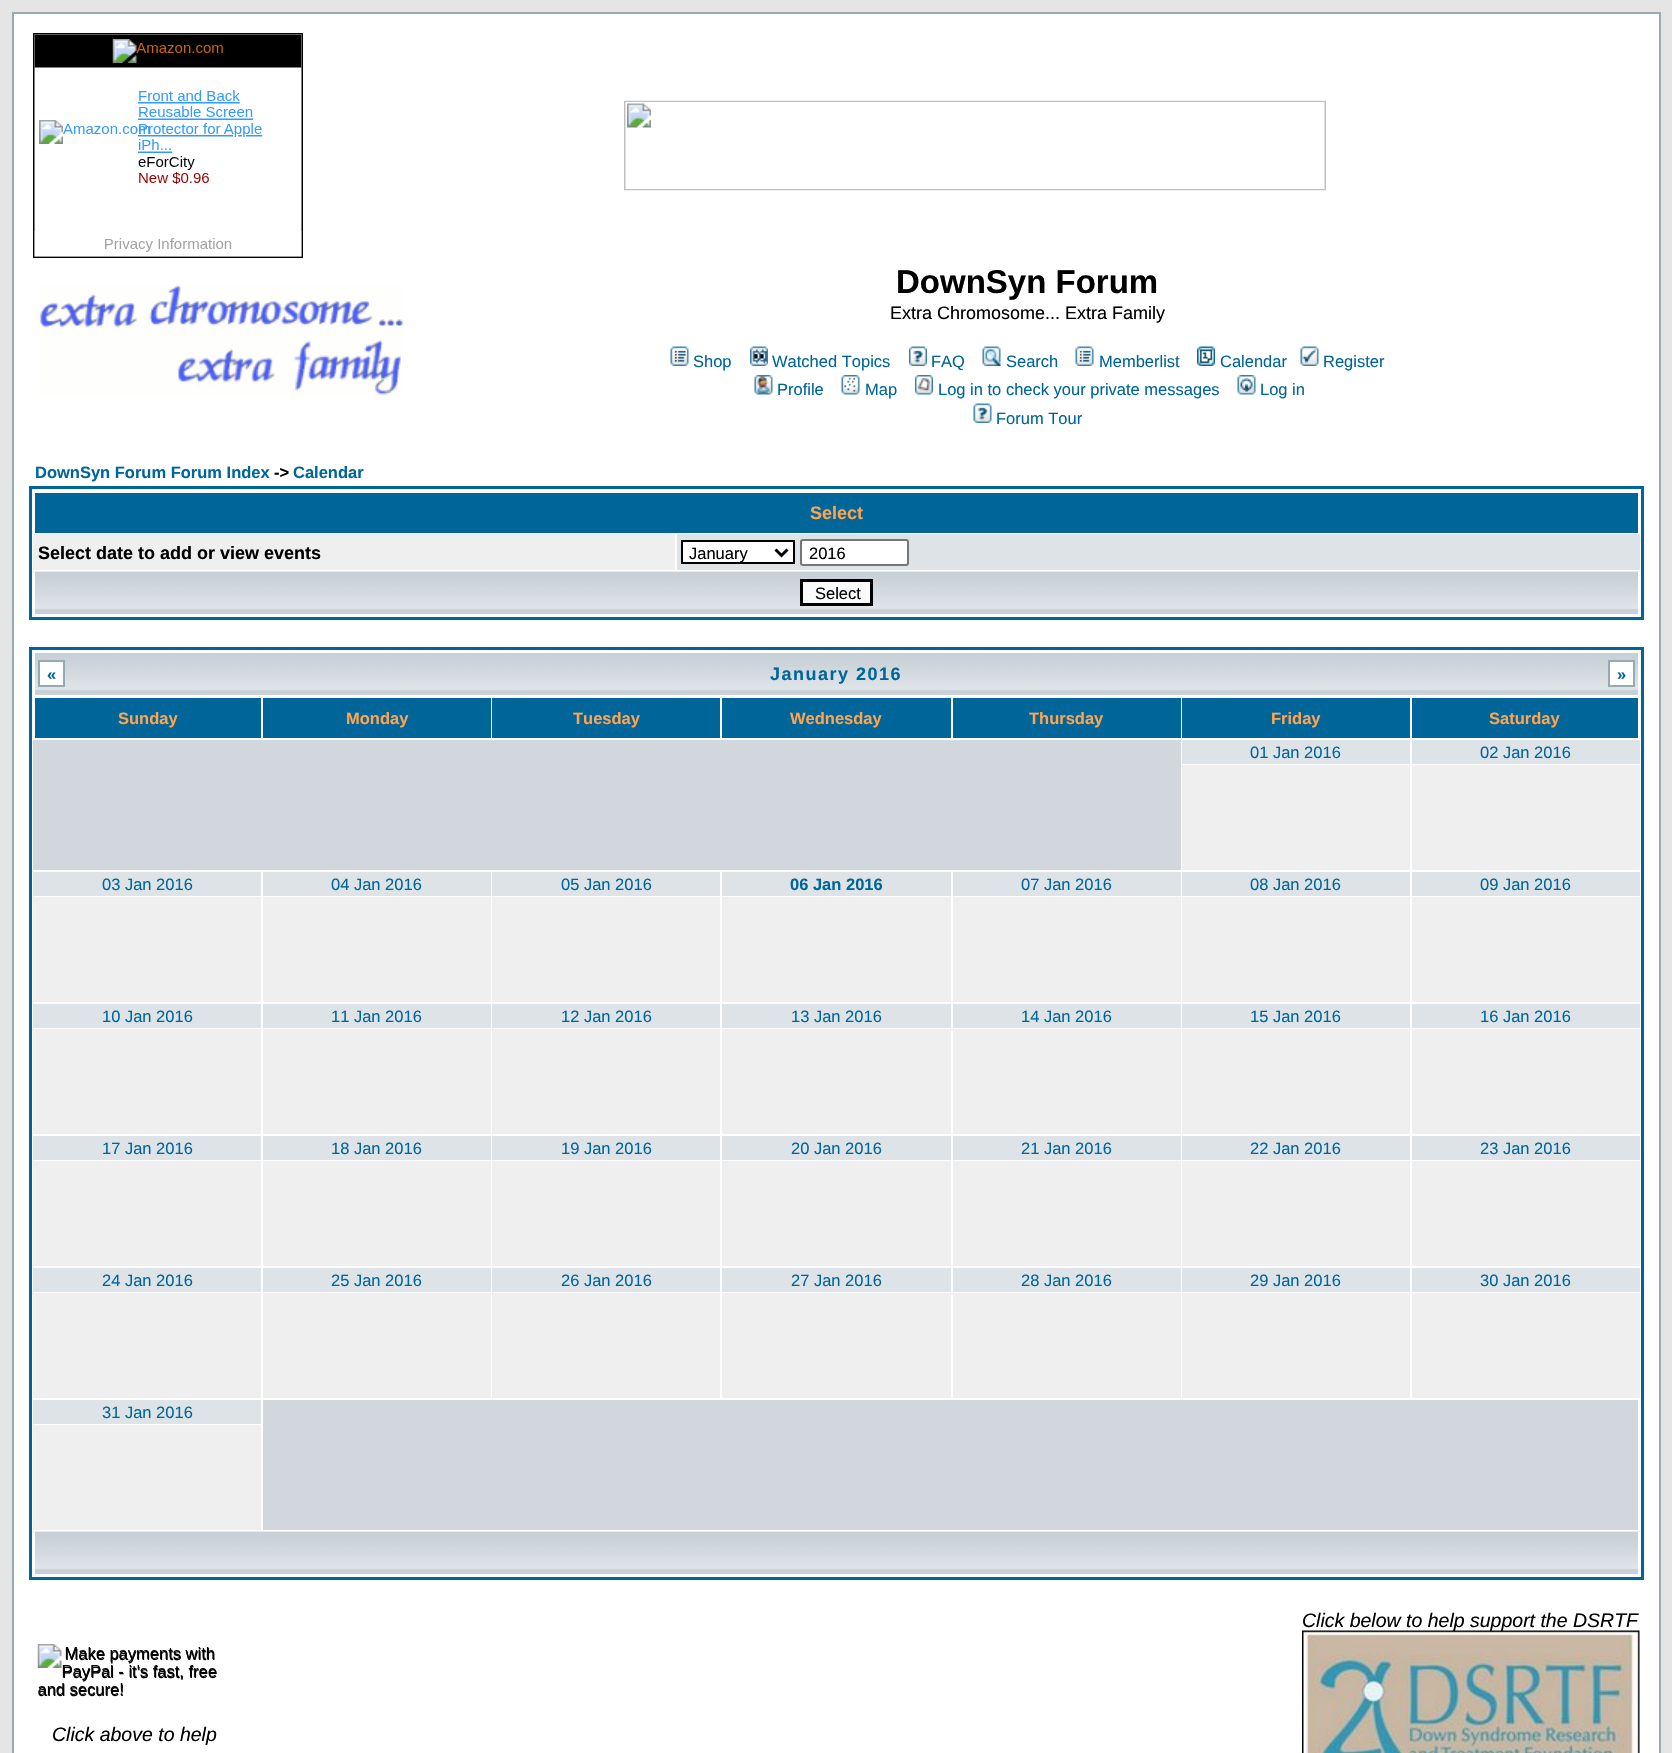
void draw(SkCanvas* canvas) {
    SkPaint paint;
    paint.setAntiAlias(true);
    auto spacedText = [&](const char* s, float x, float y, const SkFont& font, const SkPaint& ink, float letter, float word) {
        std::vector<SkGlyphID> glyphs(font.countText(s, strlen(s), SkTextEncoding::kUTF8));
        std::vector<float> xs(glyphs.size());
        font.textToGlyphs(s, strlen(s), SkTextEncoding::kUTF8, glyphs);
        font.getXPos(glyphs, xs, x);
        float extra = 0;
        for (size_t i = 0; i < glyphs.size(); i++) {
            xs[i] += extra;
            extra += letter + word * (glyphs[i] == font.unicharToGlyph(' '));
        }
        canvas->drawTextBlob(SkTextBlob::MakeFromPosHGlyphs(glyphs, xs, y, font), 0, 0, ink);
    };
    canvas->clear(0xFFE5E5E5);
    paint.setColor(0xFFFFFFFF);
    canvas->drawRect(SkRect::MakeXYWH(13, 13, 1647, 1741), paint);
    paint.setStyle(SkPaint::kStroke_Style);
    paint.setStrokeWidth(2);
    paint.setColor(0xFF98AAB1);
    canvas->drawRect(SkRect::MakeXYWH(13, 13, 1647, 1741), paint);
    canvas->drawImageRect(SkImages::DeferredFromEncodedData(SkData::MakeFromFileName("img1.png")), SkRect::MakeXYWH(33, 33, 270, 225), SkSamplingOptions());
    canvas->drawImageRect(SkImages::DeferredFromEncodedData(SkData::MakeFromFileName("img2.png")), SkRect::MakeXYWH(624, 100, 702, 91), SkSamplingOptions());
    canvas->drawImageRect(SkImages::DeferredFromEncodedData(SkData::MakeFromFileName("img3.png")), SkRect::MakeXYWH(39, 284, 365, 112), SkSamplingOptions());
    SkFont font1(fontMgr->matchFamilyStyle("Liberation Sans", SkFontStyle::Bold()), 33);
    font1.setSubpixel(true);
    paint.setStyle(SkPaint::kFill_Style);
    paint.setColor(0xFF000000);
    canvas->drawString("DownSyn Forum", 896, 293, font1, paint);
    SkFont font2(fontMgr->matchFamilyStyle("Liberation Sans", SkFontStyle::Normal()), 18);
    font2.setSubpixel(true);
    canvas->drawString("Extra Chromosome... Extra Family", 890, 319, font2, paint);
    canvas->drawImageRect(SkImages::DeferredFromEncodedData(SkData::MakeFromFileName("img4.png")), SkRect::MakeXYWH(670, 346, 19, 20), SkSamplingOptions());
    SkFont font3(fontMgr->matchFamilyStyle("Liberation Sans", SkFontStyle::Normal()), 16.5f);
    font3.setSubpixel(true);
    paint.setColor(0xFF006699);
    canvas->drawString("Shop", 693, 367, font3, paint);
    canvas->drawImageRect(SkImages::DeferredFromEncodedData(SkData::MakeFromFileName("img5.png")), SkRect::MakeXYWH(750, 346, 18, 20), SkSamplingOptions());
    canvas->drawString("Watched Topics", 772, 367, font3, paint);
    canvas->drawImageRect(SkImages::DeferredFromEncodedData(SkData::MakeFromFileName("img6.png")), SkRect::MakeXYWH(909, 346, 18, 20), SkSamplingOptions());
    canvas->drawString("FAQ", 931, 367, font3, paint);
    canvas->drawImageRect(SkImages::DeferredFromEncodedData(SkData::MakeFromFileName("img7.png")), SkRect::MakeXYWH(982, 346, 19, 20), SkSamplingOptions());
    canvas->drawString("Search", 1006, 367, font3, paint);
    canvas->drawImageRect(SkImages::DeferredFromEncodedData(SkData::MakeFromFileName("img8.png")), SkRect::MakeXYWH(1075, 346, 19, 20), SkSamplingOptions());
    canvas->drawString("Memberlist", 1099, 367, font3, paint);
    canvas->drawImageRect(SkImages::DeferredFromEncodedData(SkData::MakeFromFileName("img9.png")), SkRect::MakeXYWH(1197, 346, 18, 20), SkSamplingOptions());
    canvas->drawString("Calendar", 1220, 367, font3, paint);
    canvas->drawImageRect(SkImages::DeferredFromEncodedData(SkData::MakeFromFileName("img10.png")), SkRect::MakeXYWH(1300, 346, 19, 20), SkSamplingOptions());
    canvas->drawString("Register", 1323, 367, font3, paint);
    canvas->drawImageRect(SkImages::DeferredFromEncodedData(SkData::MakeFromFileName("img11.png")), SkRect::MakeXYWH(754, 375, 19, 20), SkSamplingOptions());
    canvas->drawString("Profile", 777, 395, font3, paint);
    canvas->drawImageRect(SkImages::DeferredFromEncodedData(SkData::MakeFromFileName("img12.png")), SkRect::MakeXYWH(841, 375, 19, 20), SkSamplingOptions());
    canvas->drawString("Map", 865, 395, font3, paint);
    canvas->drawImageRect(SkImages::DeferredFromEncodedData(SkData::MakeFromFileName("img13.png")), SkRect::MakeXYWH(915, 375, 18, 20), SkSamplingOptions());
    canvas->drawString("Log in to check your private messages", 938, 395, font3, paint);
    canvas->drawImageRect(SkImages::DeferredFromEncodedData(SkData::MakeFromFileName("img14.png")), SkRect::MakeXYWH(1237, 375, 19, 20), SkSamplingOptions());
    canvas->drawString("Log in", 1260, 395, font3, paint);
    canvas->drawImageRect(SkImages::DeferredFromEncodedData(SkData::MakeFromFileName("img15.png")), SkRect::MakeXYWH(973, 403, 19, 20), SkSamplingOptions());
    canvas->drawString("Forum Tour", 996, 424, font3, paint);
    SkFont font4(fontMgr->matchFamilyStyle("Liberation Sans", SkFontStyle::Bold()), 16.5f);
    font4.setSubpixel(true);
    canvas->drawString("DownSyn Forum Forum Index", 35, 478, font4, paint);
    paint.setColor(0xFF000000);
    canvas->drawString("->", 274, 478, font4, paint);
    paint.setColor(0xFF006699);
    canvas->drawString("Calendar", 293, 478, font4, paint);
    paint.setStyle(SkPaint::kStroke_Style);
    paint.setStrokeWidth(3);
    canvas->drawRect(SkRect::MakeXYWH(30.5f, 487.5f, 1612, 131), paint);
    paint.setStyle(SkPaint::kFill_Style);
    canvas->drawRect(SkRect::MakeXYWH(35, 493, 1603, 40), paint);
    SkFont font5(fontMgr->matchFamilyStyle("Liberation Sans", SkFontStyle::Bold()), 18);
    font5.setSubpixel(true);
    paint.setColor(0xFFFFA34F);
    canvas->drawString("Select", 810, 519, font5, paint);
    paint.setColor(0xFFEFEFEF);
    canvas->drawRect(SkRect::MakeXYWH(33, 534, 642, 36), paint);
    paint.setColor(0xFF000000);
    canvas->drawString("Select date to add or view events", 38, 559, font5, paint);
    paint.setColor(0xFFDEE3E7);
    canvas->drawRect(SkRect::MakeXYWH(677, 534, 963, 36), paint);
    paint.setColor(0xFFFFFFFF);
    canvas->drawRect(SkRect::MakeXYWH(682, 541, 112, 22), paint);
    paint.setStyle(SkPaint::kStroke_Style);
    paint.setStrokeWidth(2);
    paint.setColor(0xFF000000);
    canvas->drawRect(SkRect::MakeXYWH(682, 541, 112, 22), paint);
    paint.setStrokeWidth(3);
    canvas->drawPath(SkPathBuilder().moveTo(775.5f, 549.5f).lineTo(781.5f, 555.5f).lineTo(787.5f, 549.5f).detach(), paint);
    paint.setStyle(SkPaint::kFill_Style);
    canvas->drawString("January", 689, 559, font3, paint);
    paint.setColor(0xFFFFFFFF);
    canvas->drawRoundRect(SkRect::MakeXYWH(801, 540, 107, 25), 2, 2, paint);
    paint.setStyle(SkPaint::kStroke_Style);
    paint.setStrokeWidth(2);
    paint.setColor(0xFF767676);
    canvas->drawRoundRect(SkRect::MakeXYWH(801, 540, 107, 25), 2, 2, paint);
    paint.setStyle(SkPaint::kFill_Style);
    paint.setColor(0xFF000000);
    canvas->drawString("2016", 809, 559, font3, paint);
    canvas->drawImageRect(SkImages::DeferredFromEncodedData(SkData::MakeFromFileName("img16.png")), SkRect::MakeXYWH(33, 571, 1607, 43), SkSamplingOptions());
    paint.setColor(0xFFFFFFFF);
    canvas->drawRect(SkRect::MakeXYWH(1638, 572, 2, 43), paint);
    canvas->drawRect(SkRect::MakeXYWH(33, 572, 2, 43), paint);
    paint.setColor(0xFFFAFAFA);
    canvas->drawRect(SkRect::MakeXYWH(801.5f, 580.5f, 70, 24), paint);
    paint.setStyle(SkPaint::kStroke_Style);
    paint.setStrokeWidth(3);
    paint.setColor(0xFF000000);
    canvas->drawRect(SkRect::MakeXYWH(801.5f, 580.5f, 70, 24), paint);
    paint.setStyle(SkPaint::kFill_Style);
    canvas->drawString("Select", 815, 599, font3, paint);
    paint.setStyle(SkPaint::kStroke_Style);
    paint.setColor(0xFF006699);
    canvas->drawRect(SkRect::MakeXYWH(30.5f, 648.5f, 1612, 930), paint);
    paint.setStyle(SkPaint::kFill_Style);
    paint.setColor(0xFFD1D7DC);
    canvas->drawRect(SkRect::MakeXYWH(35, 694, 1603, 1), paint);
    canvas->drawImageRect(SkImages::DeferredFromEncodedData(SkData::MakeFromFileName("img17.png")), SkRect::MakeXYWH(35, 653, 1603, 42), SkSamplingOptions());
    paint.setColor(0xFFFFFFFF);
    canvas->drawRect(SkRect::MakeXYWH(39, 661, 25, 25), paint);
    paint.setStyle(SkPaint::kStroke_Style);
    paint.setStrokeWidth(2);
    paint.setColor(0xFF98AAB1);
    canvas->drawRect(SkRect::MakeXYWH(39, 661, 25, 25), paint);
    paint.setStyle(SkPaint::kFill_Style);
    paint.setColor(0xFF006699);
    canvas->drawString("«", 47, 680, font4, paint);
    spacedText("January 2016", 770, 680, font5, paint, 1.5f, 0);
    paint.setColor(0xFFFFFFFF);
    canvas->drawRect(SkRect::MakeXYWH(1609, 661, 25, 25), paint);
    paint.setStyle(SkPaint::kStroke_Style);
    paint.setColor(0xFF98AAB1);
    canvas->drawRect(SkRect::MakeXYWH(1609, 661, 25, 25), paint);
    paint.setStyle(SkPaint::kFill_Style);
    paint.setColor(0xFF006699);
    canvas->drawString("»", 1617, 680, font4, paint);
    canvas->drawRect(SkRect::MakeXYWH(35, 698, 226, 40), paint);
    paint.setColor(0xFFFFA34F);
    canvas->drawString("Sunday", 118, 724, font4, paint);
    paint.setColor(0xFF006699);
    canvas->drawRect(SkRect::MakeXYWH(263, 698, 228, 40), paint);
    paint.setColor(0xFFFFA34F);
    canvas->drawString("Monday", 346, 724, font4, paint);
    paint.setColor(0xFF006699);
    canvas->drawRect(SkRect::MakeXYWH(492, 698, 228, 40), paint);
    paint.setColor(0xFFFFA34F);
    canvas->drawString("Tuesday", 573, 724, font4, paint);
    paint.setColor(0xFF006699);
    canvas->drawRect(SkRect::MakeXYWH(722, 698, 229, 40), paint);
    paint.setColor(0xFFFFA34F);
    canvas->drawString("Wednesday", 790, 724, font4, paint);
    paint.setColor(0xFF006699);
    canvas->drawRect(SkRect::MakeXYWH(953, 698, 228, 40), paint);
    paint.setColor(0xFFFFA34F);
    canvas->drawString("Thursday", 1029, 724, font4, paint);
    paint.setColor(0xFF006699);
    canvas->drawRect(SkRect::MakeXYWH(1182, 698, 228, 40), paint);
    paint.setColor(0xFFFFA34F);
    canvas->drawString("Friday", 1271, 724, font4, paint);
    paint.setColor(0xFF006699);
    canvas->drawRect(SkRect::MakeXYWH(1412, 698, 226, 40), paint);
    paint.setColor(0xFFFFA34F);
    canvas->drawString("Saturday", 1489, 724, font4, paint);
    paint.setColor(0xFFD1D7DC);
    canvas->drawRect(SkRect::MakeXYWH(33, 740, 1148, 130), paint);
    paint.setColor(0xFFDEE3E7);
    canvas->drawRect(SkRect::MakeXYWH(1182, 740, 228, 24), paint);
    paint.setColor(0xFF006699);
    canvas->drawString("01 Jan 2016", 1250, 758, font3, paint);
    paint.setColor(0xFFDEE3E7);
    canvas->drawRect(SkRect::MakeXYWH(1412, 740, 228, 24), paint);
    paint.setColor(0xFF006699);
    canvas->drawString("02 Jan 2016", 1480, 758, font3, paint);
    paint.setColor(0xFFEFEFEF);
    canvas->drawRect(SkRect::MakeXYWH(1182, 765, 228, 105), paint);
    canvas->drawRect(SkRect::MakeXYWH(1412, 765, 228, 105), paint);
    paint.setColor(0xFFDEE3E7);
    canvas->drawRect(SkRect::MakeXYWH(33, 872, 228, 24), paint);
    paint.setColor(0xFF006699);
    canvas->drawString("03 Jan 2016", 102, 890, font3, paint);
    paint.setColor(0xFFDEE3E7);
    canvas->drawRect(SkRect::MakeXYWH(263, 872, 228, 24), paint);
    paint.setColor(0xFF006699);
    canvas->drawString("04 Jan 2016", 331, 890, font3, paint);
    paint.setColor(0xFFDEE3E7);
    canvas->drawRect(SkRect::MakeXYWH(492, 872, 228, 24), paint);
    paint.setColor(0xFF006699);
    canvas->drawString("05 Jan 2016", 561, 890, font3, paint);
    paint.setColor(0xFFDEE3E7);
    canvas->drawRect(SkRect::MakeXYWH(722, 872, 229, 24), paint);
    paint.setColor(0xFF006699);
    canvas->drawString("06 Jan 2016", 790, 890, font4, paint);
    paint.setColor(0xFFDEE3E7);
    canvas->drawRect(SkRect::MakeXYWH(953, 872, 228, 24), paint);
    paint.setColor(0xFF006699);
    canvas->drawString("07 Jan 2016", 1021, 890, font3, paint);
    paint.setColor(0xFFDEE3E7);
    canvas->drawRect(SkRect::MakeXYWH(1182, 872, 228, 24), paint);
    paint.setColor(0xFF006699);
    canvas->drawString("08 Jan 2016", 1250, 890, font3, paint);
    paint.setColor(0xFFDEE3E7);
    canvas->drawRect(SkRect::MakeXYWH(1412, 872, 228, 24), paint);
    paint.setColor(0xFF006699);
    canvas->drawString("09 Jan 2016", 1480, 890, font3, paint);
    paint.setColor(0xFFEFEFEF);
    canvas->drawRect(SkRect::MakeXYWH(33, 897, 228, 105), paint);
    canvas->drawRect(SkRect::MakeXYWH(263, 897, 228, 105), paint);
    canvas->drawRect(SkRect::MakeXYWH(492, 897, 228, 105), paint);
    canvas->drawRect(SkRect::MakeXYWH(722, 897, 229, 105), paint);
    canvas->drawRect(SkRect::MakeXYWH(953, 897, 228, 105), paint);
    canvas->drawRect(SkRect::MakeXYWH(1182, 897, 228, 105), paint);
    canvas->drawRect(SkRect::MakeXYWH(1412, 897, 228, 105), paint);
    paint.setColor(0xFFDEE3E7);
    canvas->drawRect(SkRect::MakeXYWH(33, 1004, 228, 24), paint);
    paint.setColor(0xFF006699);
    canvas->drawString("10 Jan 2016", 102, 1022, font3, paint);
    paint.setColor(0xFFDEE3E7);
    canvas->drawRect(SkRect::MakeXYWH(263, 1004, 228, 24), paint);
    paint.setColor(0xFF006699);
    canvas->drawString("11 Jan 2016", 331, 1022, font3, paint);
    paint.setColor(0xFFDEE3E7);
    canvas->drawRect(SkRect::MakeXYWH(492, 1004, 228, 24), paint);
    paint.setColor(0xFF006699);
    canvas->drawString("12 Jan 2016", 561, 1022, font3, paint);
    paint.setColor(0xFFDEE3E7);
    canvas->drawRect(SkRect::MakeXYWH(722, 1004, 229, 24), paint);
    paint.setColor(0xFF006699);
    canvas->drawString("13 Jan 2016", 791, 1022, font3, paint);
    paint.setColor(0xFFDEE3E7);
    canvas->drawRect(SkRect::MakeXYWH(953, 1004, 228, 24), paint);
    paint.setColor(0xFF006699);
    canvas->drawString("14 Jan 2016", 1021, 1022, font3, paint);
    paint.setColor(0xFFDEE3E7);
    canvas->drawRect(SkRect::MakeXYWH(1182, 1004, 228, 24), paint);
    paint.setColor(0xFF006699);
    canvas->drawString("15 Jan 2016", 1250, 1022, font3, paint);
    paint.setColor(0xFFDEE3E7);
    canvas->drawRect(SkRect::MakeXYWH(1412, 1004, 228, 24), paint);
    paint.setColor(0xFF006699);
    canvas->drawString("16 Jan 2016", 1480, 1022, font3, paint);
    paint.setColor(0xFFEFEFEF);
    canvas->drawRect(SkRect::MakeXYWH(33, 1029, 228, 105), paint);
    canvas->drawRect(SkRect::MakeXYWH(263, 1029, 228, 105), paint);
    canvas->drawRect(SkRect::MakeXYWH(492, 1029, 228, 105), paint);
    canvas->drawRect(SkRect::MakeXYWH(722, 1029, 229, 105), paint);
    canvas->drawRect(SkRect::MakeXYWH(953, 1029, 228, 105), paint);
    canvas->drawRect(SkRect::MakeXYWH(1182, 1029, 228, 105), paint);
    canvas->drawRect(SkRect::MakeXYWH(1412, 1029, 228, 105), paint);
    paint.setColor(0xFFDEE3E7);
    canvas->drawRect(SkRect::MakeXYWH(33, 1136, 228, 24), paint);
    paint.setColor(0xFF006699);
    canvas->drawString("17 Jan 2016", 102, 1154, font3, paint);
    paint.setColor(0xFFDEE3E7);
    canvas->drawRect(SkRect::MakeXYWH(263, 1136, 228, 24), paint);
    paint.setColor(0xFF006699);
    canvas->drawString("18 Jan 2016", 331, 1154, font3, paint);
    paint.setColor(0xFFDEE3E7);
    canvas->drawRect(SkRect::MakeXYWH(492, 1136, 228, 24), paint);
    paint.setColor(0xFF006699);
    canvas->drawString("19 Jan 2016", 561, 1154, font3, paint);
    paint.setColor(0xFFDEE3E7);
    canvas->drawRect(SkRect::MakeXYWH(722, 1136, 229, 24), paint);
    paint.setColor(0xFF006699);
    canvas->drawString("20 Jan 2016", 791, 1154, font3, paint);
    paint.setColor(0xFFDEE3E7);
    canvas->drawRect(SkRect::MakeXYWH(953, 1136, 228, 24), paint);
    paint.setColor(0xFF006699);
    canvas->drawString("21 Jan 2016", 1021, 1154, font3, paint);
    paint.setColor(0xFFDEE3E7);
    canvas->drawRect(SkRect::MakeXYWH(1182, 1136, 228, 24), paint);
    paint.setColor(0xFF006699);
    canvas->drawString("22 Jan 2016", 1250, 1154, font3, paint);
    paint.setColor(0xFFDEE3E7);
    canvas->drawRect(SkRect::MakeXYWH(1412, 1136, 228, 24), paint);
    paint.setColor(0xFF006699);
    canvas->drawString("23 Jan 2016", 1480, 1154, font3, paint);
    paint.setColor(0xFFEFEFEF);
    canvas->drawRect(SkRect::MakeXYWH(33, 1161, 228, 105), paint);
    canvas->drawRect(SkRect::MakeXYWH(263, 1161, 228, 105), paint);
    canvas->drawRect(SkRect::MakeXYWH(492, 1161, 228, 105), paint);
    canvas->drawRect(SkRect::MakeXYWH(722, 1161, 229, 105), paint);
    canvas->drawRect(SkRect::MakeXYWH(953, 1161, 228, 105), paint);
    canvas->drawRect(SkRect::MakeXYWH(1182, 1161, 228, 105), paint);
    canvas->drawRect(SkRect::MakeXYWH(1412, 1161, 228, 105), paint);
    paint.setColor(0xFFDEE3E7);
    canvas->drawRect(SkRect::MakeXYWH(33, 1268, 228, 24), paint);
    paint.setColor(0xFF006699);
    canvas->drawString("24 Jan 2016", 102, 1286, font3, paint);
    paint.setColor(0xFFDEE3E7);
    canvas->drawRect(SkRect::MakeXYWH(263, 1268, 228, 24), paint);
    paint.setColor(0xFF006699);
    canvas->drawString("25 Jan 2016", 331, 1286, font3, paint);
    paint.setColor(0xFFDEE3E7);
    canvas->drawRect(SkRect::MakeXYWH(492, 1268, 228, 24), paint);
    paint.setColor(0xFF006699);
    canvas->drawString("26 Jan 2016", 561, 1286, font3, paint);
    paint.setColor(0xFFDEE3E7);
    canvas->drawRect(SkRect::MakeXYWH(722, 1268, 229, 24), paint);
    paint.setColor(0xFF006699);
    canvas->drawString("27 Jan 2016", 791, 1286, font3, paint);
    paint.setColor(0xFFDEE3E7);
    canvas->drawRect(SkRect::MakeXYWH(953, 1268, 228, 24), paint);
    paint.setColor(0xFF006699);
    canvas->drawString("28 Jan 2016", 1021, 1286, font3, paint);
    paint.setColor(0xFFDEE3E7);
    canvas->drawRect(SkRect::MakeXYWH(1182, 1268, 228, 24), paint);
    paint.setColor(0xFF006699);
    canvas->drawString("29 Jan 2016", 1250, 1286, font3, paint);
    paint.setColor(0xFFDEE3E7);
    canvas->drawRect(SkRect::MakeXYWH(1412, 1268, 228, 24), paint);
    paint.setColor(0xFF006699);
    canvas->drawString("30 Jan 2016", 1480, 1286, font3, paint);
    paint.setColor(0xFFEFEFEF);
    canvas->drawRect(SkRect::MakeXYWH(33, 1293, 228, 105), paint);
    canvas->drawRect(SkRect::MakeXYWH(263, 1293, 228, 105), paint);
    canvas->drawRect(SkRect::MakeXYWH(492, 1293, 228, 105), paint);
    canvas->drawRect(SkRect::MakeXYWH(722, 1293, 229, 105), paint);
    canvas->drawRect(SkRect::MakeXYWH(953, 1293, 228, 105), paint);
    canvas->drawRect(SkRect::MakeXYWH(1182, 1293, 228, 105), paint);
    canvas->drawRect(SkRect::MakeXYWH(1412, 1293, 228, 105), paint);
    paint.setColor(0xFFDEE3E7);
    canvas->drawRect(SkRect::MakeXYWH(33, 1400, 228, 24), paint);
    paint.setColor(0xFF006699);
    canvas->drawString("31 Jan 2016", 102, 1418, font3, paint);
    paint.setColor(0xFFD1D7DC);
    canvas->drawRect(SkRect::MakeXYWH(263, 1400, 1375, 130), paint);
    paint.setColor(0xFFEFEFEF);
    canvas->drawRect(SkRect::MakeXYWH(33, 1425, 228, 105), paint);
    canvas->drawImageRect(SkImages::DeferredFromEncodedData(SkData::MakeFromFileName("img16.png")), SkRect::MakeXYWH(33, 1531, 1607, 43), SkSamplingOptions());
    paint.setColor(0xFFFFFFFF);
    canvas->drawRect(SkRect::MakeXYWH(1638, 1532, 2, 43), paint);
    canvas->drawRect(SkRect::MakeXYWH(33, 1532, 2, 43), paint);
    SkFont font6(fontMgr->matchFamilyStyle("Liberation Sans", SkFontStyle::Italic()), 19.5f);
    font6.setSubpixel(true);
    paint.setColor(0xFF000000);
    canvas->drawString("Click below to help support the DSRTF", 1302, 1627, font6, paint);
    canvas->drawImageRect(SkImages::DeferredFromEncodedData(SkData::MakeFromFileName("img18.png")), SkRect::MakeXYWH(1302, 1630, 338, 123), SkSamplingOptions());
    canvas->drawImageRect(SkImages::DeferredFromEncodedData(SkData::MakeFromFileName("img19.png")), SkRect::MakeXYWH(37, 1644, 180, 51), SkSamplingOptions());
    canvas->drawString("Make payments with", 65, 1660, font3, paint);
    canvas->drawString("PayPal - it's fast, free", 62, 1678, font3, paint);
    canvas->drawString("and secure!", 38, 1696, font3, paint);
    canvas->drawString("Click above to help", 52, 1741, font6, paint);
}
